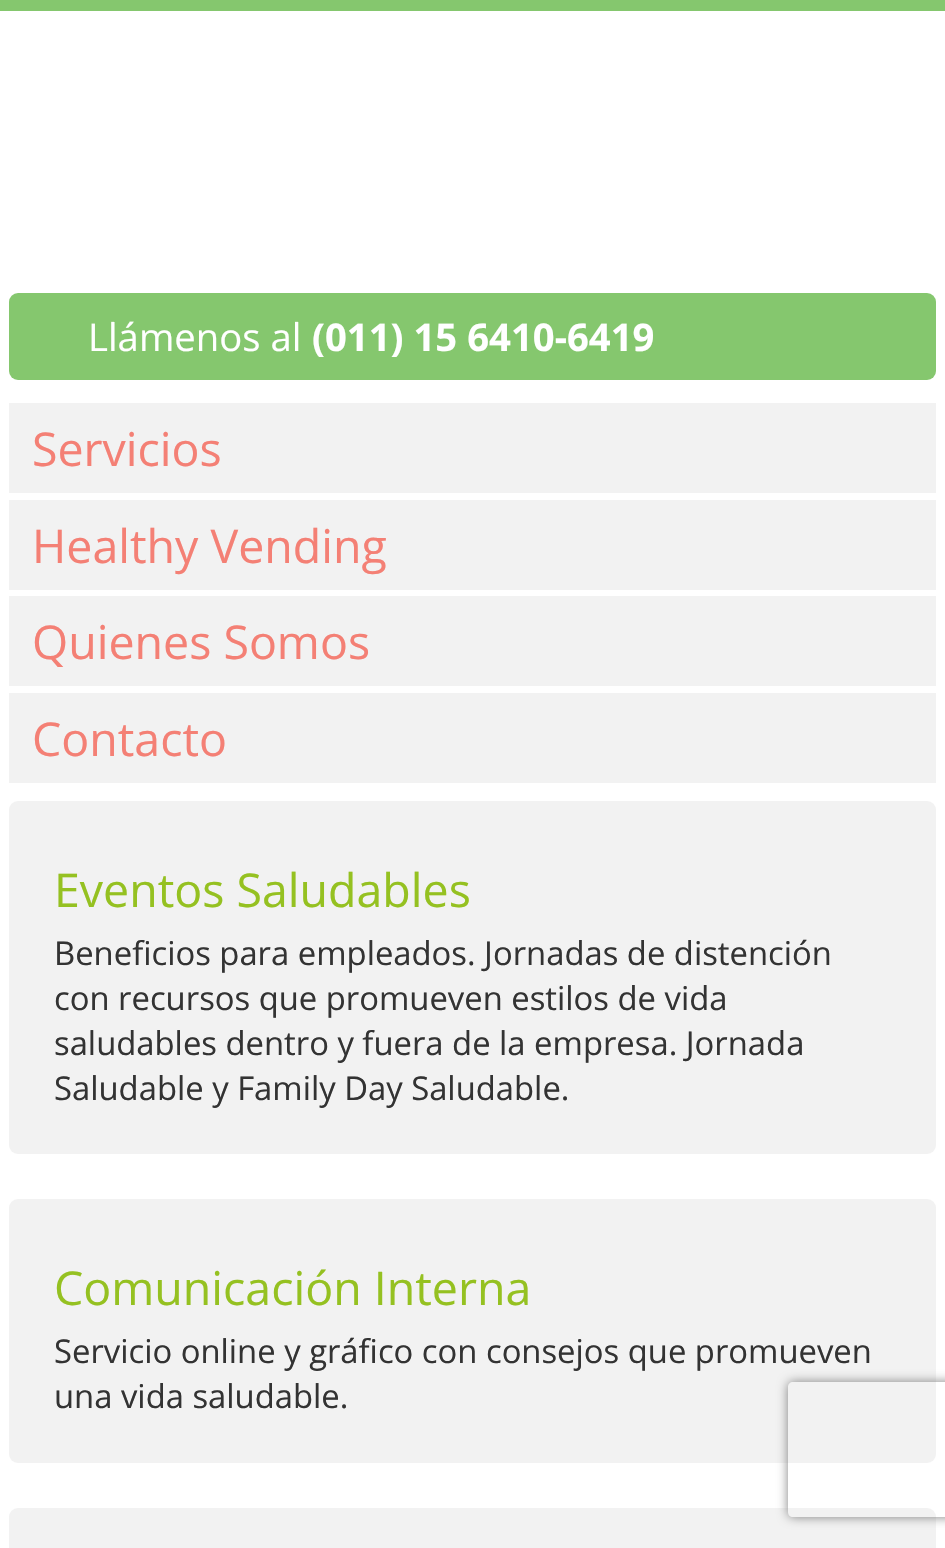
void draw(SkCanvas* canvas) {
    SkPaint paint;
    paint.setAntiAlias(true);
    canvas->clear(0xFFFFFFFF);
    paint.setColor(0xFF85C76E);
    canvas->drawRect(SkRect::MakeXYWH(0, 0, 945, 11), paint);
    canvas->drawRoundRect(SkRect::MakeXYWH(9, 293, 927, 87), 9, 9, paint);
    SkFont font1(fontMgr->matchFamilyStyle("Open Sans", SkFontStyle::Normal()), 38.25f);
    font1.setSubpixel(true);
    paint.setColor(0xFFFFFFFF);
    canvas->drawString("Llámenos al", 88, 351, font1, paint);
    SkFont font2(fontMgr->matchFamilyStyle("Open Sans", SkFontStyle::Bold()), 38.25f);
    font2.setSubpixel(true);
    canvas->drawString("(011) 15 6410-6419", 312, 351, font2, paint);
    paint.setColor(0xFFF2F2F2);
    canvas->drawRect(SkRect::MakeXYWH(9, 403, 927, 90), paint);
    SkFont font3(fontMgr->matchFamilyStyle("Open Sans", SkFontStyle::Normal()), 46.5f);
    font3.setSubpixel(true);
    paint.setColor(0xFFF48075);
    canvas->drawString("Servicios", 32, 466, font3, paint);
    paint.setColor(0xFFF2F2F2);
    canvas->drawRect(SkRect::MakeXYWH(9, 500, 927, 90), paint);
    paint.setColor(0xFFF48075);
    canvas->drawString("Healthy Vending", 32, 563, font3, paint);
    paint.setColor(0xFFF2F2F2);
    canvas->drawRect(SkRect::MakeXYWH(9, 596, 927, 90), paint);
    paint.setColor(0xFFF48075);
    canvas->drawString("Quienes Somos", 32, 659, font3, paint);
    paint.setColor(0xFFF2F2F2);
    canvas->drawRect(SkRect::MakeXYWH(9, 693, 927, 90), paint);
    paint.setColor(0xFFF48075);
    canvas->drawString("Contacto", 32, 756, font3, paint);
    paint.setColor(0xFFF2F2F2);
    canvas->drawRoundRect(SkRect::MakeXYWH(9, 801, 927, 353), 9, 9, paint);
    paint.setColor(0xFF95C121);
    canvas->drawString("Eventos Saludables", 54, 907, font3, paint);
    SkFont font4(fontMgr->matchFamilyStyle("Open Sans", SkFontStyle::Normal()), 32.8f);
    font4.setSubpixel(true);
    paint.setColor(0xFF333333);
    canvas->drawString("Beneficios para empleados. Jornadas de distención", 54, 965, font4, paint);
    canvas->drawString("con recursos que promueven estilos de vida", 54, 1010, font4, paint);
    canvas->drawString("saludables dentro y fuera de la empresa. Jornada", 54, 1055, font4, paint);
    canvas->drawString("Saludable y Family Day Saludable.", 54, 1100, font4, paint);
    paint.setColor(0xFFF2F2F2);
    canvas->drawRoundRect(SkRect::MakeXYWH(9, 1199, 927, 264), 9, 9, paint);
    paint.setColor(0xFF95C121);
    canvas->drawString("Comunicación Interna", 54, 1305, font3, paint);
    paint.setColor(0xFF333333);
    canvas->drawString("Servicio online y gráfico con consejos que promueven", 54, 1363, font4, paint);
    canvas->drawString("una vida saludable.", 54, 1408, font4, paint);
    paint.setColor(0xFFF2F2F2);
    canvas->drawRoundRect(SkRect::MakeXYWH(9, 1508, 927, 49), 9, 9, paint);
    canvas->save();
    canvas->clipPath(SkPathBuilder(SkPathFillType::kEvenOdd).moveTo(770, 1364).lineTo(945, 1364).lineTo(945, 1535).lineTo(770, 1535).close().moveTo(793, 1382).lineTo(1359, 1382).cubicTo(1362, 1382, 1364, 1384, 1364, 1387).lineTo(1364, 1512).cubicTo(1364, 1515, 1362, 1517, 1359, 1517).lineTo(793, 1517).cubicTo(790, 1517, 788, 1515, 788, 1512).lineTo(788, 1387).cubicTo(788, 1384, 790, 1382, 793, 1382).close().detach(), true);
    paint.setColor(0xFF808080);
    paint.setMaskFilter(SkMaskFilter::MakeBlur(kNormal_SkBlurStyle, 5.5f));
    canvas->drawRoundRect(SkRect::MakeXYWH(788, 1382, 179, 135), 5, 5, paint);
    paint.setMaskFilter(nullptr);
    canvas->restore();
}
